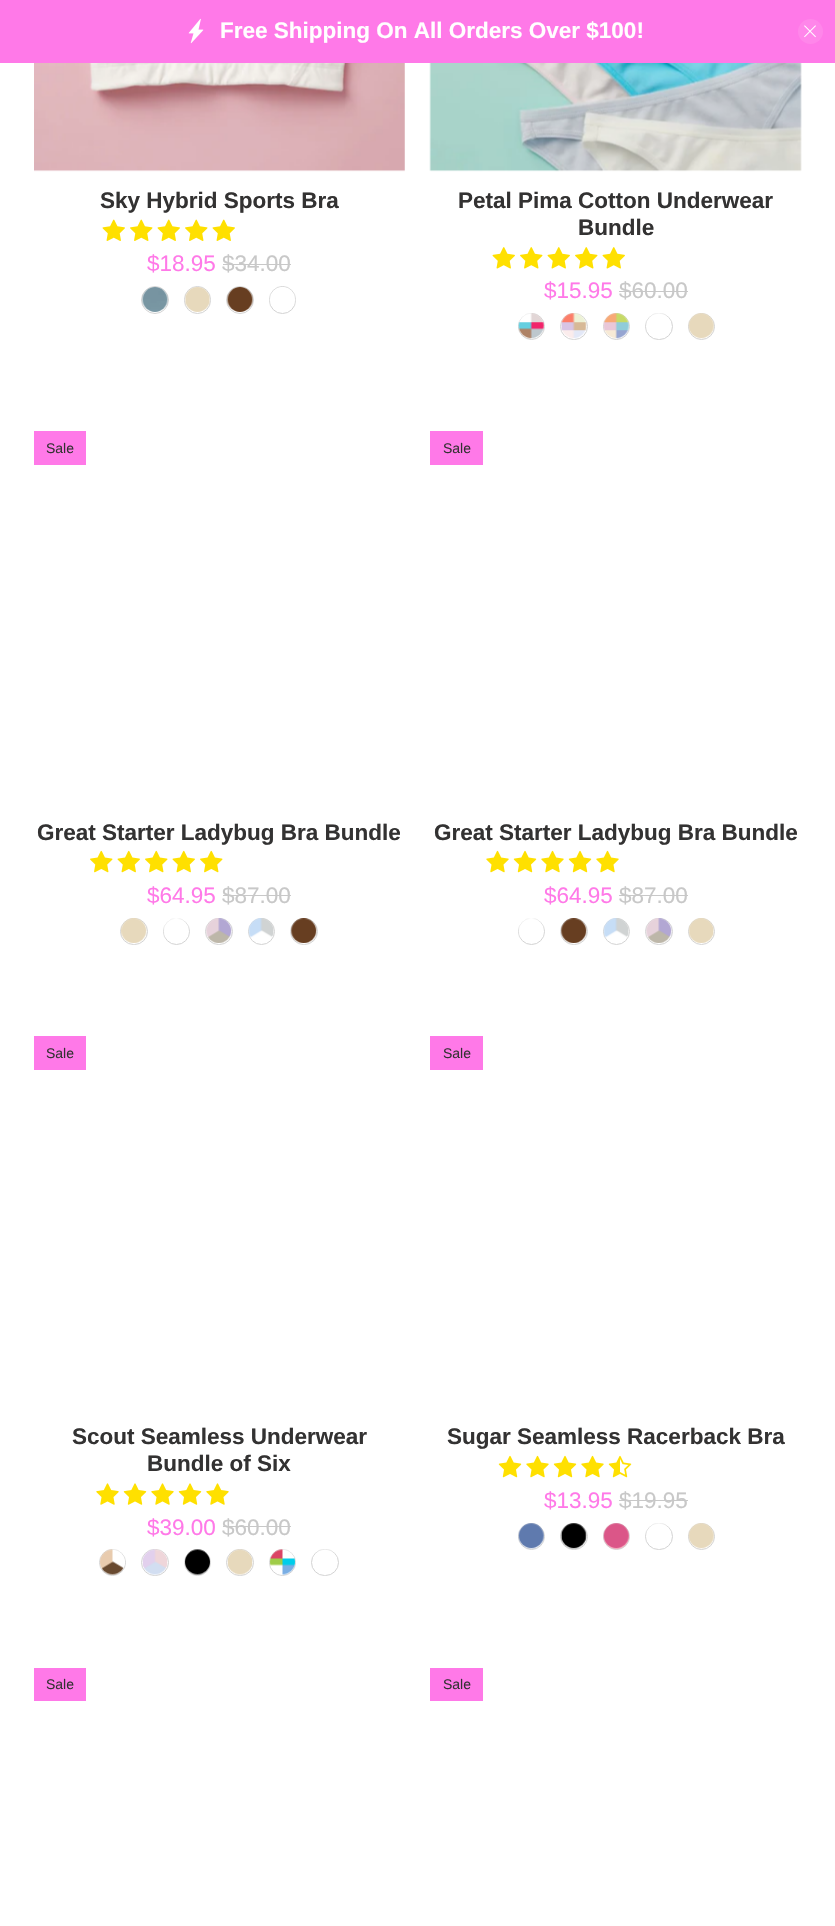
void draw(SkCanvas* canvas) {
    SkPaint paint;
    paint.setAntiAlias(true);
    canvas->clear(0xFFFFFFFF);
    paint.setColor(0xFFFF79E8);
    canvas->drawRect(SkRect::MakeXYWH(0, 0, 835, 63), paint);
    canvas->drawImageRect(SkImages::DeferredFromEncodedData(SkData::MakeFromFileName("img1.png")), SkRect::MakeXYWH(188, 18, 16, 26), SkSamplingOptions());
    SkFont font1(fontMgr->matchFamilyStyle("Liberation Sans", SkFontStyle::Bold()), 22.5f);
    font1.setSubpixel(true);
    paint.setColor(0xFFFFFFFF);
    canvas->drawString("Free Shipping On All Orders Over $100!", 220, 38, font1, paint);
    paint.setColor(0xFFFF86EA);
    canvas->drawCircle(810.5f, 31.5f, 12.5f, paint);
    canvas->drawImageRect(SkImages::DeferredFromEncodedData(SkData::MakeFromFileName("img2.png")), SkRect::MakeXYWH(804, 25, 12, 13), SkSamplingOptions());
    canvas->drawImageRect(SkImages::DeferredFromEncodedData(SkData::MakeFromFileName("img3.png")), SkRect::MakeXYWH(34, 63, 371, 109), SkSamplingOptions());
    paint.setColor(0xFF333232);
    canvas->drawString("Sky Hybrid Sports Bra", 100, 208, font1, paint);
    canvas->drawImageRect(SkImages::DeferredFromEncodedData(SkData::MakeFromFileName("img4.png")), SkRect::MakeXYWH(102, 219, 23, 22), SkSamplingOptions());
    canvas->drawImageRect(SkImages::DeferredFromEncodedData(SkData::MakeFromFileName("img5.png")), SkRect::MakeXYWH(130, 219, 23, 22), SkSamplingOptions());
    canvas->drawImageRect(SkImages::DeferredFromEncodedData(SkData::MakeFromFileName("img4.png")), SkRect::MakeXYWH(157, 219, 23, 22), SkSamplingOptions());
    canvas->drawImageRect(SkImages::DeferredFromEncodedData(SkData::MakeFromFileName("img5.png")), SkRect::MakeXYWH(185, 219, 23, 22), SkSamplingOptions());
    canvas->drawImageRect(SkImages::DeferredFromEncodedData(SkData::MakeFromFileName("img4.png")), SkRect::MakeXYWH(212, 219, 23, 22), SkSamplingOptions());
    SkFont font2(fontMgr->matchFamilyStyle("Liberation Sans", SkFontStyle::Normal()), 22.5f);
    font2.setSubpixel(true);
    paint.setColor(0xFFFF79E8);
    canvas->drawString("$18.95", 147, 271, font2, paint);
    paint.setColor(0xFFC8C8C8);
    canvas->drawString("$34.00", 222, 271, font2, paint);
    canvas->drawRect(SkRect::MakeXYWH(223, 264, 68, 1), paint);
    paint.setStyle(SkPaint::kStroke_Style);
    paint.setStrokeWidth(1);
    paint.setColor(0xFFD3D3D3);
    canvas->drawCircle(155, 300, 13.5f, paint);
    canvas->drawImageRect(SkImages::DeferredFromEncodedData(SkData::MakeFromFileName("img6.png")), SkRect::MakeXYWH(142, 287, 26, 25), SkSamplingOptions());
    canvas->drawRoundRect(SkRect::MakeXYWH(184.5f, 286.5f, 26, 27), 13, 13, paint);
    canvas->drawImageRect(SkImages::DeferredFromEncodedData(SkData::MakeFromFileName("img7.png")), SkRect::MakeXYWH(185, 287, 25, 25), SkSamplingOptions());
    canvas->drawCircle(240, 300, 13.5f, paint);
    canvas->drawImageRect(SkImages::DeferredFromEncodedData(SkData::MakeFromFileName("img8.png")), SkRect::MakeXYWH(227, 287, 26, 25), SkSamplingOptions());
    canvas->drawRoundRect(SkRect::MakeXYWH(269.5f, 286.5f, 26, 27), 13, 13, paint);
    canvas->drawImageRect(SkImages::DeferredFromEncodedData(SkData::MakeFromFileName("img9.png")), SkRect::MakeXYWH(269, 287, 27, 18), SkSamplingOptions());
    canvas->drawImageRect(SkImages::DeferredFromEncodedData(SkData::MakeFromFileName("img10.png")), SkRect::MakeXYWH(429, 63, 373, 109), SkSamplingOptions());
    paint.setStyle(SkPaint::kFill_Style);
    paint.setColor(0xFF333232);
    canvas->drawString("Petal Pima Cotton Underwear", 458, 208, font1, paint);
    canvas->drawString("Bundle", 578, 235, font1, paint);
    canvas->drawImageRect(SkImages::DeferredFromEncodedData(SkData::MakeFromFileName("img11.png")), SkRect::MakeXYWH(492, 247, 23, 22), SkSamplingOptions());
    canvas->drawImageRect(SkImages::DeferredFromEncodedData(SkData::MakeFromFileName("img12.png")), SkRect::MakeXYWH(520, 247, 23, 22), SkSamplingOptions());
    canvas->drawImageRect(SkImages::DeferredFromEncodedData(SkData::MakeFromFileName("img11.png")), SkRect::MakeXYWH(547, 247, 23, 22), SkSamplingOptions());
    canvas->drawImageRect(SkImages::DeferredFromEncodedData(SkData::MakeFromFileName("img12.png")), SkRect::MakeXYWH(575, 247, 23, 22), SkSamplingOptions());
    canvas->drawImageRect(SkImages::DeferredFromEncodedData(SkData::MakeFromFileName("img11.png")), SkRect::MakeXYWH(602, 247, 23, 22), SkSamplingOptions());
    paint.setColor(0xFFFF79E8);
    canvas->drawString("$15.95", 544, 298, font2, paint);
    paint.setColor(0xFFC8C8C8);
    canvas->drawString("$60.00", 619, 298, font2, paint);
    canvas->drawRect(SkRect::MakeXYWH(619, 291, 69, 1), paint);
    paint.setStyle(SkPaint::kStroke_Style);
    paint.setColor(0xFFD3D3D3);
    canvas->drawCircle(531.5f, 326.5f, 13, paint);
    canvas->drawImageRect(SkImages::DeferredFromEncodedData(SkData::MakeFromFileName("img13.png")), SkRect::MakeXYWH(518, 313, 26, 26), SkSamplingOptions());
    canvas->drawRoundRect(SkRect::MakeXYWH(560.5f, 313.5f, 27, 26), 13, 13, paint);
    canvas->drawImageRect(SkImages::DeferredFromEncodedData(SkData::MakeFromFileName("img14.png")), SkRect::MakeXYWH(561, 313, 26, 26), SkSamplingOptions());
    canvas->drawCircle(616.5f, 326.5f, 13, paint);
    canvas->drawImageRect(SkImages::DeferredFromEncodedData(SkData::MakeFromFileName("img15.png")), SkRect::MakeXYWH(603, 313, 26, 26), SkSamplingOptions());
    canvas->drawRoundRect(SkRect::MakeXYWH(645.5f, 313.5f, 27, 26), 13, 13, paint);
    canvas->drawImageRect(SkImages::DeferredFromEncodedData(SkData::MakeFromFileName("img16.png")), SkRect::MakeXYWH(646, 313, 25, 18), SkSamplingOptions());
    canvas->drawCircle(701.5f, 326.5f, 13, paint);
    canvas->drawImageRect(SkImages::DeferredFromEncodedData(SkData::MakeFromFileName("img17.png")), SkRect::MakeXYWH(688, 313, 26, 26), SkSamplingOptions());
    paint.setStyle(SkPaint::kFill_Style);
    paint.setColor(0xFFFF79E8);
    canvas->drawRect(SkRect::MakeXYWH(34, 431, 52, 34), paint);
    SkFont font3(fontMgr->matchFamilyStyle("Liberation Sans", SkFontStyle::Normal()), 14);
    font3.setSubpixel(true);
    paint.setColor(0xFF333232);
    canvas->drawString("Sale", 46, 453, font3, paint);
    canvas->drawString("Great Starter Ladybug Bra Bundle", 37, 840, font1, paint);
    canvas->drawImageRect(SkImages::DeferredFromEncodedData(SkData::MakeFromFileName("img18.png")), SkRect::MakeXYWH(90, 850, 23, 23), SkSamplingOptions());
    canvas->drawImageRect(SkImages::DeferredFromEncodedData(SkData::MakeFromFileName("img19.png")), SkRect::MakeXYWH(117, 850, 23, 23), SkSamplingOptions());
    canvas->drawImageRect(SkImages::DeferredFromEncodedData(SkData::MakeFromFileName("img18.png")), SkRect::MakeXYWH(145, 850, 23, 23), SkSamplingOptions());
    canvas->drawImageRect(SkImages::DeferredFromEncodedData(SkData::MakeFromFileName("img19.png")), SkRect::MakeXYWH(172, 850, 23, 23), SkSamplingOptions());
    canvas->drawImageRect(SkImages::DeferredFromEncodedData(SkData::MakeFromFileName("img18.png")), SkRect::MakeXYWH(200, 850, 23, 23), SkSamplingOptions());
    paint.setColor(0xFFFF79E8);
    canvas->drawString("$64.95", 147, 903, font2, paint);
    paint.setColor(0xFFC8C8C8);
    canvas->drawString("$87.00", 222, 903, font2, paint);
    canvas->drawRect(SkRect::MakeXYWH(223, 895, 68, 1), paint);
    paint.setStyle(SkPaint::kStroke_Style);
    paint.setColor(0xFFD3D3D3);
    canvas->drawRoundRect(SkRect::MakeXYWH(120.5f, 918.5f, 27, 26), 13, 13, paint);
    canvas->drawImageRect(SkImages::DeferredFromEncodedData(SkData::MakeFromFileName("img20.png")), SkRect::MakeXYWH(121, 918, 26, 25), SkSamplingOptions());
    canvas->drawCircle(176.5f, 931.5f, 13, paint);
    canvas->drawImageRect(SkImages::DeferredFromEncodedData(SkData::MakeFromFileName("img21.png")), SkRect::MakeXYWH(163, 918, 26, 23), SkSamplingOptions());
    canvas->drawRoundRect(SkRect::MakeXYWH(205.5f, 918.5f, 27, 26), 13, 13, paint);
    canvas->drawImageRect(SkImages::DeferredFromEncodedData(SkData::MakeFromFileName("img22.png")), SkRect::MakeXYWH(206, 918, 26, 25), SkSamplingOptions());
    canvas->drawCircle(261.5f, 931.5f, 13, paint);
    canvas->drawImageRect(SkImages::DeferredFromEncodedData(SkData::MakeFromFileName("img23.png")), SkRect::MakeXYWH(248, 918, 26, 23), SkSamplingOptions());
    canvas->drawRoundRect(SkRect::MakeXYWH(290.5f, 918.5f, 27, 26), 13, 13, paint);
    canvas->drawImageRect(SkImages::DeferredFromEncodedData(SkData::MakeFromFileName("img24.png")), SkRect::MakeXYWH(291, 918, 26, 25), SkSamplingOptions());
    paint.setStyle(SkPaint::kFill_Style);
    paint.setColor(0xFFFF79E8);
    canvas->drawRect(SkRect::MakeXYWH(430, 431, 53, 34), paint);
    paint.setColor(0xFF333232);
    canvas->drawString("Sale", 443, 453, font3, paint);
    canvas->drawString("Great Starter Ladybug Bra Bundle", 434, 840, font1, paint);
    canvas->drawImageRect(SkImages::DeferredFromEncodedData(SkData::MakeFromFileName("img25.png")), SkRect::MakeXYWH(486, 850, 23, 23), SkSamplingOptions());
    canvas->drawImageRect(SkImages::DeferredFromEncodedData(SkData::MakeFromFileName("img26.png")), SkRect::MakeXYWH(513, 850, 24, 23), SkSamplingOptions());
    canvas->drawImageRect(SkImages::DeferredFromEncodedData(SkData::MakeFromFileName("img25.png")), SkRect::MakeXYWH(541, 850, 23, 23), SkSamplingOptions());
    canvas->drawImageRect(SkImages::DeferredFromEncodedData(SkData::MakeFromFileName("img26.png")), SkRect::MakeXYWH(568, 850, 24, 23), SkSamplingOptions());
    canvas->drawImageRect(SkImages::DeferredFromEncodedData(SkData::MakeFromFileName("img25.png")), SkRect::MakeXYWH(596, 850, 23, 23), SkSamplingOptions());
    paint.setColor(0xFFFF79E8);
    canvas->drawString("$64.95", 544, 903, font2, paint);
    paint.setColor(0xFFC8C8C8);
    canvas->drawString("$87.00", 619, 903, font2, paint);
    canvas->drawRect(SkRect::MakeXYWH(619, 895, 69, 1), paint);
    paint.setStyle(SkPaint::kStroke_Style);
    paint.setColor(0xFFD3D3D3);
    canvas->drawCircle(531.5f, 931.5f, 13, paint);
    canvas->drawImageRect(SkImages::DeferredFromEncodedData(SkData::MakeFromFileName("img21.png")), SkRect::MakeXYWH(518, 918, 26, 23), SkSamplingOptions());
    canvas->drawRoundRect(SkRect::MakeXYWH(560.5f, 918.5f, 27, 26), 13, 13, paint);
    canvas->drawImageRect(SkImages::DeferredFromEncodedData(SkData::MakeFromFileName("img27.png")), SkRect::MakeXYWH(561, 918, 26, 25), SkSamplingOptions());
    canvas->drawCircle(616.5f, 931.5f, 13, paint);
    canvas->drawImageRect(SkImages::DeferredFromEncodedData(SkData::MakeFromFileName("img28.png")), SkRect::MakeXYWH(603, 918, 26, 23), SkSamplingOptions());
    canvas->drawRoundRect(SkRect::MakeXYWH(645.5f, 918.5f, 27, 26), 13, 13, paint);
    canvas->drawImageRect(SkImages::DeferredFromEncodedData(SkData::MakeFromFileName("img22.png")), SkRect::MakeXYWH(646, 918, 26, 25), SkSamplingOptions());
    canvas->drawCircle(701.5f, 931.5f, 13, paint);
    canvas->drawImageRect(SkImages::DeferredFromEncodedData(SkData::MakeFromFileName("img29.png")), SkRect::MakeXYWH(688, 918, 26, 25), SkSamplingOptions());
    paint.setStyle(SkPaint::kFill_Style);
    paint.setColor(0xFFFF79E8);
    canvas->drawRect(SkRect::MakeXYWH(34, 1036, 52, 34), paint);
    paint.setColor(0xFF333232);
    canvas->drawString("Sale", 46, 1058, font3, paint);
    canvas->drawString("Scout Seamless Underwear", 72, 1444, font1, paint);
    canvas->drawString("Bundle of Six", 147, 1471, font1, paint);
    canvas->drawImageRect(SkImages::DeferredFromEncodedData(SkData::MakeFromFileName("img30.png")), SkRect::MakeXYWH(96, 1483, 23, 22), SkSamplingOptions());
    canvas->drawImageRect(SkImages::DeferredFromEncodedData(SkData::MakeFromFileName("img31.png")), SkRect::MakeXYWH(123, 1483, 24, 22), SkSamplingOptions());
    canvas->drawImageRect(SkImages::DeferredFromEncodedData(SkData::MakeFromFileName("img30.png")), SkRect::MakeXYWH(151, 1483, 23, 22), SkSamplingOptions());
    canvas->drawImageRect(SkImages::DeferredFromEncodedData(SkData::MakeFromFileName("img31.png")), SkRect::MakeXYWH(178, 1483, 24, 22), SkSamplingOptions());
    canvas->drawImageRect(SkImages::DeferredFromEncodedData(SkData::MakeFromFileName("img30.png")), SkRect::MakeXYWH(206, 1483, 23, 22), SkSamplingOptions());
    paint.setColor(0xFFFF79E8);
    canvas->drawString("$39.00", 147, 1535, font2, paint);
    paint.setColor(0xFFC8C8C8);
    canvas->drawString("$60.00", 222, 1535, font2, paint);
    canvas->drawRect(SkRect::MakeXYWH(223, 1526, 68, 1), paint);
    paint.setStyle(SkPaint::kStroke_Style);
    paint.setColor(0xFFD3D3D3);
    canvas->drawCircle(112.5f, 1562.5f, 13, paint);
    canvas->drawImageRect(SkImages::DeferredFromEncodedData(SkData::MakeFromFileName("img32.png")), SkRect::MakeXYWH(100, 1549, 25, 26), SkSamplingOptions());
    canvas->drawRoundRect(SkRect::MakeXYWH(141.5f, 1549.5f, 27, 26), 13, 13, paint);
    canvas->drawImageRect(SkImages::DeferredFromEncodedData(SkData::MakeFromFileName("img33.png")), SkRect::MakeXYWH(142, 1549, 26, 26), SkSamplingOptions());
    canvas->drawCircle(197.5f, 1562.5f, 13, paint);
    canvas->drawImageRect(SkImages::DeferredFromEncodedData(SkData::MakeFromFileName("img34.png")), SkRect::MakeXYWH(185, 1549, 25, 26), SkSamplingOptions());
    canvas->drawRoundRect(SkRect::MakeXYWH(226.5f, 1549.5f, 27, 26), 13, 13, paint);
    canvas->drawImageRect(SkImages::DeferredFromEncodedData(SkData::MakeFromFileName("img35.png")), SkRect::MakeXYWH(227, 1549, 26, 26), SkSamplingOptions());
    canvas->drawCircle(282.5f, 1562.5f, 13, paint);
    canvas->drawImageRect(SkImages::DeferredFromEncodedData(SkData::MakeFromFileName("img36.png")), SkRect::MakeXYWH(270, 1549, 25, 26), SkSamplingOptions());
    canvas->drawRoundRect(SkRect::MakeXYWH(311.5f, 1549.5f, 27, 26), 13, 13, paint);
    canvas->drawImageRect(SkImages::DeferredFromEncodedData(SkData::MakeFromFileName("img37.png")), SkRect::MakeXYWH(313, 1549, 24, 8), SkSamplingOptions());
    paint.setStyle(SkPaint::kFill_Style);
    paint.setColor(0xFFFF79E8);
    canvas->drawRect(SkRect::MakeXYWH(430, 1036, 53, 34), paint);
    paint.setColor(0xFF333232);
    canvas->drawString("Sale", 443, 1058, font3, paint);
    canvas->drawString("Sugar Seamless Racerback Bra", 447, 1444, font1, paint);
    canvas->drawImageRect(SkImages::DeferredFromEncodedData(SkData::MakeFromFileName("img26.png")), SkRect::MakeXYWH(498, 1455, 24, 23), SkSamplingOptions());
    canvas->drawImageRect(SkImages::DeferredFromEncodedData(SkData::MakeFromFileName("img25.png")), SkRect::MakeXYWH(526, 1455, 23, 23), SkSamplingOptions());
    canvas->drawImageRect(SkImages::DeferredFromEncodedData(SkData::MakeFromFileName("img26.png")), SkRect::MakeXYWH(553, 1455, 24, 23), SkSamplingOptions());
    canvas->drawImageRect(SkImages::DeferredFromEncodedData(SkData::MakeFromFileName("img25.png")), SkRect::MakeXYWH(581, 1455, 23, 23), SkSamplingOptions());
    canvas->drawImageRect(SkImages::DeferredFromEncodedData(SkData::MakeFromFileName("img38.png")), SkRect::MakeXYWH(608, 1455, 24, 23), SkSamplingOptions());
    paint.setColor(0xFFFF79E8);
    canvas->drawString("$13.95", 544, 1508, font2, paint);
    paint.setColor(0xFFC8C8C8);
    canvas->drawString("$19.95", 619, 1508, font2, paint);
    canvas->drawRect(SkRect::MakeXYWH(619, 1500, 69, 1), paint);
    paint.setStyle(SkPaint::kStroke_Style);
    paint.setColor(0xFFD3D3D3);
    canvas->drawCircle(531.5f, 1536.5f, 13, paint);
    canvas->drawImageRect(SkImages::DeferredFromEncodedData(SkData::MakeFromFileName("img39.png")), SkRect::MakeXYWH(518, 1523, 26, 26), SkSamplingOptions());
    canvas->drawRoundRect(SkRect::MakeXYWH(560.5f, 1523.5f, 27, 26), 13, 13, paint);
    canvas->drawImageRect(SkImages::DeferredFromEncodedData(SkData::MakeFromFileName("img40.png")), SkRect::MakeXYWH(560, 1523, 27, 26), SkSamplingOptions());
    paint.setStyle(SkPaint::kFill_Style);
    paint.setColor(0xFFFFC0CB);
    canvas->drawCircle(616.5f, 1536.5f, 13, paint);
    paint.setStyle(SkPaint::kStroke_Style);
    paint.setColor(0xFFD3D3D3);
    canvas->drawCircle(616.5f, 1536.5f, 13, paint);
    canvas->drawImageRect(SkImages::DeferredFromEncodedData(SkData::MakeFromFileName("img41.png")), SkRect::MakeXYWH(603, 1523, 26, 26), SkSamplingOptions());
    canvas->drawRoundRect(SkRect::MakeXYWH(645.5f, 1523.5f, 27, 26), 13, 13, paint);
    canvas->drawImageRect(SkImages::DeferredFromEncodedData(SkData::MakeFromFileName("img16.png")), SkRect::MakeXYWH(646, 1523, 25, 18), SkSamplingOptions());
    canvas->drawCircle(701.5f, 1536.5f, 13, paint);
    canvas->drawImageRect(SkImages::DeferredFromEncodedData(SkData::MakeFromFileName("img17.png")), SkRect::MakeXYWH(688, 1523, 26, 26), SkSamplingOptions());
    paint.setStyle(SkPaint::kFill_Style);
    paint.setColor(0xFFFF79E8);
    canvas->drawRect(SkRect::MakeXYWH(34, 1668, 52, 33), paint);
    paint.setColor(0xFF333232);
    canvas->drawString("Sale", 46, 1689, font3, paint);
    paint.setColor(0xFFFF79E8);
    canvas->drawRect(SkRect::MakeXYWH(430, 1668, 53, 33), paint);
    paint.setColor(0xFF333232);
    canvas->drawString("Sale", 443, 1689, font3, paint);
}
